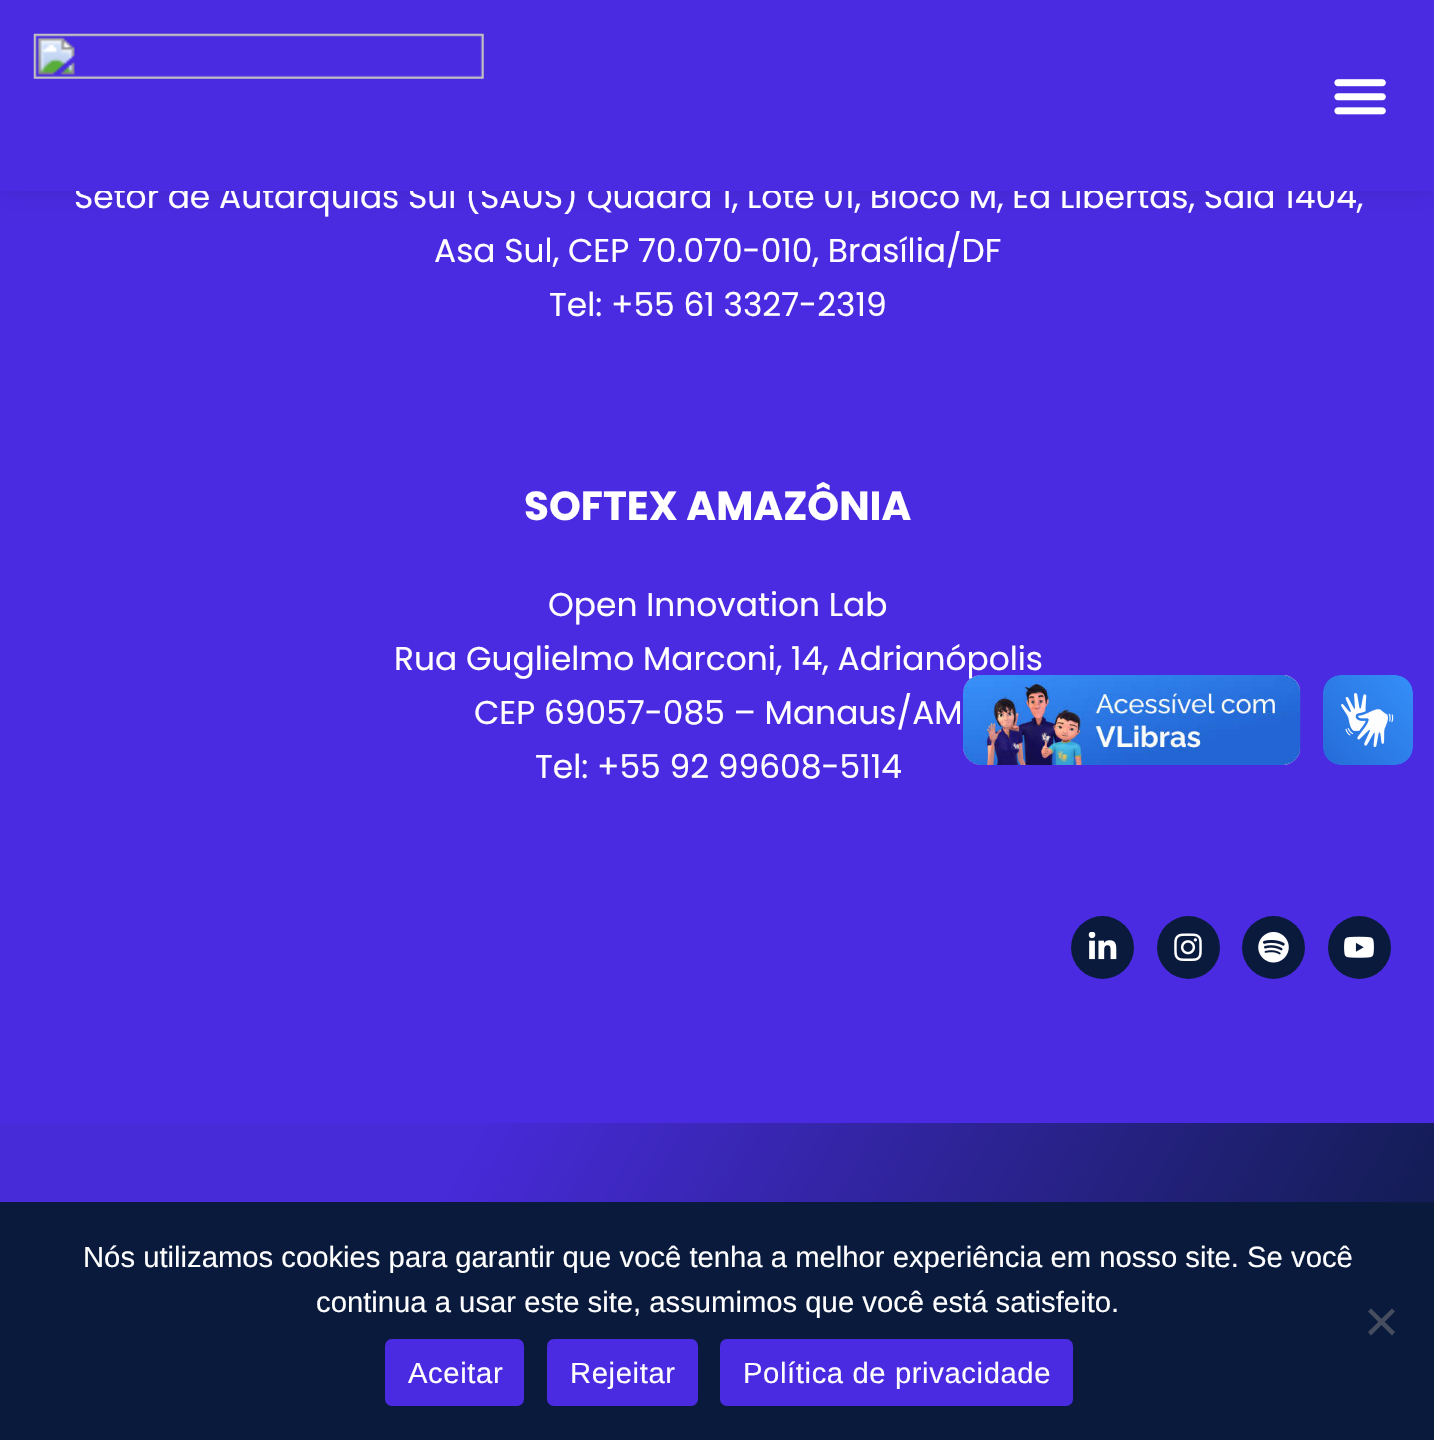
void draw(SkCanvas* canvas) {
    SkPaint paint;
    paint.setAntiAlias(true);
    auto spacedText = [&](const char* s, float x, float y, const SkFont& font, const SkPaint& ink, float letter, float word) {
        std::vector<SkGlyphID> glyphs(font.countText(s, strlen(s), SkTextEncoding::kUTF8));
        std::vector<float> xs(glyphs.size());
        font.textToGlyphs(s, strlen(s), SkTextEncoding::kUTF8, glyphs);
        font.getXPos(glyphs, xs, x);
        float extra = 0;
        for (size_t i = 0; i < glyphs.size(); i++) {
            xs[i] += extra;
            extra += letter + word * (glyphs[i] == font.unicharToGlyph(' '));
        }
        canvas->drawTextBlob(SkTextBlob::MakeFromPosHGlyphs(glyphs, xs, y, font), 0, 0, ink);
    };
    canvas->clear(0xFF4A2BE1);
    paint.setColor(0x1A000000);
    paint.setMaskFilter(SkMaskFilter::MakeBlur(kNormal_SkBlurStyle, 11));
    canvas->drawRect(SkRect::MakeXYWH(0, 0, 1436, 191), paint);
    paint.setMaskFilter(nullptr);
    SkFont font1(fontMgr->matchFamilyStyle("Poppins", SkFontStyle::Normal()), 32.85f);
    font1.setSubpixel(true);
    paint.setColor(0xFFFFFFFF);
    canvas->drawString("Setor de Autarquias Sul (SAUS) Quadra 1, Lote 01, Bloco M, Ed Libertas, Sala 1404,", 74, 208, font1, paint);
    paint.setColor(0xFF4A2BE1);
    canvas->drawRect(SkRect::MakeXYWH(0, 0, 1434, 191), paint);
    canvas->drawImageRect(SkImages::DeferredFromEncodedData(SkData::MakeFromFileName("img1.png")), SkRect::MakeXYWH(33, 33, 451, 46), SkSamplingOptions());
    canvas->drawImageRect(SkImages::DeferredFromEncodedData(SkData::MakeFromFileName("img2.png")), SkRect::MakeXYWH(1334, 79, 52, 36), SkSamplingOptions());
    paint.setColor(0xFFFFFFFF);
    canvas->drawString("Asa Sul, CEP 70.070-010, Brasília/DF", 434, 262, font1, paint);
    canvas->drawString("Tel: +55 61 3327-2319", 549, 316, font1, paint);
    SkFont font2(fontMgr->matchFamilyStyle("Poppins", SkFontStyle::Bold()), 40.5f);
    font2.setSubpixel(true);
    canvas->drawString("SOFTEX AMAZÔNIA", 524, 520, font2, paint);
    canvas->drawString("Open Innovation Lab", 548, 616, font1, paint);
    canvas->drawString("Rua Guglielmo Marconi, 14, Adrianópolis", 394, 670, font1, paint);
    canvas->drawString("CEP 69057-085 – Manaus/AM", 474, 724, font1, paint);
    canvas->drawString("Tel: +55 92 99608-5114", 535, 778, font1, paint);
    paint.setColor(0xFF0A1A3D);
    canvas->drawCircle(1102.5f, 947.5f, 31.5f, paint);
    canvas->drawImageRect(SkImages::DeferredFromEncodedData(SkData::MakeFromFileName("img3.png")), SkRect::MakeXYWH(1088, 932, 29, 28), SkSamplingOptions());
    canvas->drawCircle(1188.5f, 947.5f, 31.5f, paint);
    canvas->drawImageRect(SkImages::DeferredFromEncodedData(SkData::MakeFromFileName("img4.png")), SkRect::MakeXYWH(1174, 933, 28, 28), SkSamplingOptions());
    canvas->drawCircle(1273.5f, 947.5f, 31.5f, paint);
    canvas->drawImageRect(SkImages::DeferredFromEncodedData(SkData::MakeFromFileName("img5.png")), SkRect::MakeXYWH(1258, 932, 31, 31), SkSamplingOptions());
    canvas->drawCircle(1359.5f, 947.5f, 31.5f, paint);
    canvas->drawImageRect(SkImages::DeferredFromEncodedData(SkData::MakeFromFileName("img6.png")), SkRect::MakeXYWH(1344, 936, 30, 22), SkSamplingOptions());
    {
        const SkColor colors[] = {0xFF472AD8, 0xFF0C1B41};
        const float stops[] = {0.3f, 1};
        const SkPoint ends[] = {{111, 931}, {1325, 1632}};
        paint.setShader(SkGradientShader::MakeLinear(ends, colors, stops, 2, SkTileMode::kClamp));
        paint.setAlpha(255);
    }
    canvas->drawRect(SkRect::MakeXYWH(0, 1123, 1434, 79), paint);
    canvas->drawImageRect(SkImages::DeferredFromEncodedData(SkData::MakeFromFileName("img7.png")), SkRect::MakeXYWH(963, 675, 338, 90), SkSamplingOptions());
    canvas->drawImageRect(SkImages::DeferredFromEncodedData(SkData::MakeFromFileName("img8.png")), SkRect::MakeXYWH(1323, 675, 90, 90), SkSamplingOptions());
    paint.setShader(nullptr);
    paint.setColor(0xFF0A1A3D);
    canvas->drawRect(SkRect::MakeXYWH(0, 1202, 1434, 238), paint);
    SkFont font3(fontMgr->matchFamilyStyle("Liberation Sans", SkFontStyle::Normal()), 29.25f);
    font3.setSubpixel(true);
    paint.setColor(0xFFFFFFFF);
    canvas->drawString("Nós utilizamos cookies para garantir que você tenha a melhor experiência em nosso site. Se você", 83, 1267, font3, paint);
    canvas->drawString("continua a usar este site, assumimos que você está satisfeito.", 316, 1312, font3, paint);
    paint.setColor(0xFF454D5F);
    canvas->drawPath(SkPathBuilder().moveTo(1392, 1308.5f).lineTo(1395, 1311.5f).lineTo(1371, 1335.5f).lineTo(1368, 1332).close().detach(), paint);
    canvas->drawPath(SkPathBuilder().moveTo(1368, 1311.5f).lineTo(1371, 1308.5f).lineTo(1395, 1332).lineTo(1392, 1335.5f).close().detach(), paint);
    paint.setColor(0xFF4A2BE1);
    canvas->drawRoundRect(SkRect::MakeXYWH(385, 1339, 139, 67), 7, 7, paint);
    paint.setColor(0xFFFFFFFF);
    spacedText("Aceitar", 408, 1383, font3, paint, 0.6f, 0);
    paint.setColor(0xFF4A2BE1);
    canvas->drawRoundRect(SkRect::MakeXYWH(547, 1339, 151, 67), 7, 7, paint);
    paint.setColor(0xFFFFFFFF);
    spacedText("Rejeitar", 570, 1383, font3, paint, 0.6f, 0);
    paint.setColor(0xFF4A2BE1);
    canvas->drawRoundRect(SkRect::MakeXYWH(720, 1339, 353, 67), 7, 7, paint);
    paint.setColor(0xFFFFFFFF);
    spacedText("Política de privacidade", 743, 1383, font3, paint, 0.6f, 0);
}
